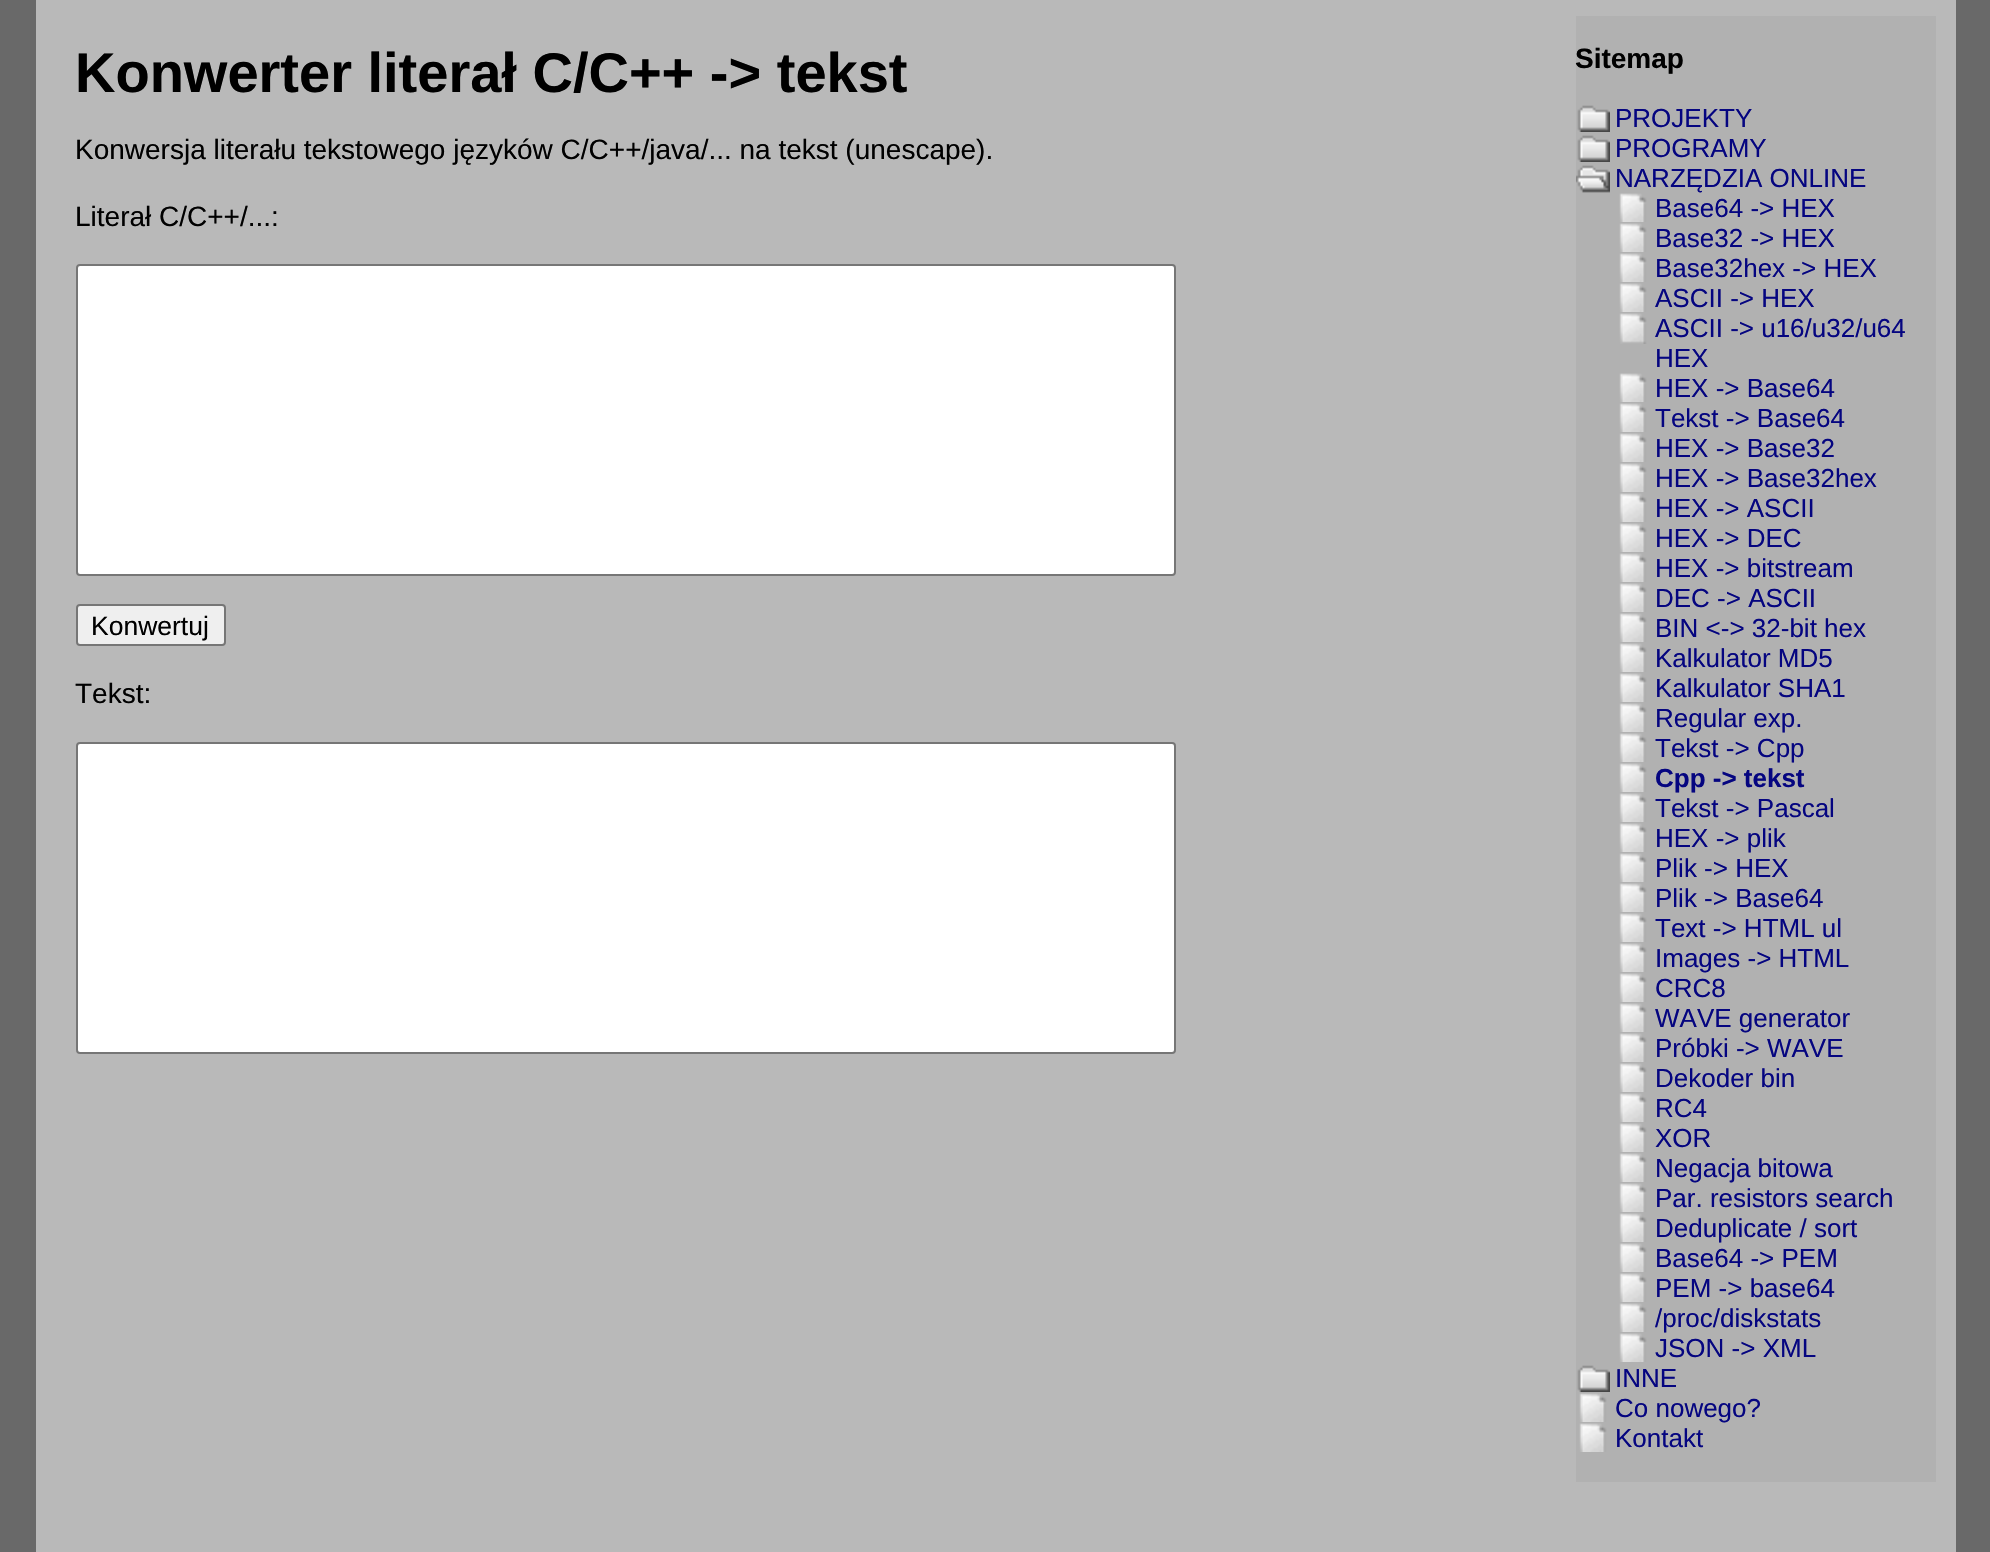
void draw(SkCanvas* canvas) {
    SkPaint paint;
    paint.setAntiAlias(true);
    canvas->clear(0xFF696969);
    paint.setColor(0xFFB9B9B9);
    canvas->drawRect(SkRect::MakeXYWH(36, 0, 1920, 1552), paint);
    SkFont font1(fontMgr->matchFamilyStyle("Liberation Sans", SkFontStyle::Bold()), 56);
    font1.setSubpixel(true);
    paint.setColor(0xFF000000);
    canvas->drawString("Konwerter literał C/C++ -> tekst", 75, 92, font1, paint);
    SkFont font2(fontMgr->matchFamilyStyle("Liberation Sans", SkFontStyle::Normal()), 28);
    font2.setSubpixel(true);
    canvas->drawString("Konwersja literału tekstowego języków C/C++/java/... na tekst (unescape).", 75, 159, font2, paint);
    canvas->drawString("Literał C/C++/...:", 75, 226, font2, paint);
    paint.setColor(0xFFFFFFFF);
    canvas->drawRoundRect(SkRect::MakeXYWH(77, 265, 1098, 310), 3, 3, paint);
    paint.setStyle(SkPaint::kStroke_Style);
    paint.setStrokeWidth(2);
    paint.setColor(0xFF767676);
    canvas->drawRoundRect(SkRect::MakeXYWH(77, 265, 1098, 310), 3, 3, paint);
    paint.setStyle(SkPaint::kFill_Style);
    paint.setColor(0xFFEFEFEF);
    canvas->drawRoundRect(SkRect::MakeXYWH(77, 605, 148, 40), 3, 3, paint);
    paint.setStyle(SkPaint::kStroke_Style);
    paint.setColor(0xFF767676);
    canvas->drawRoundRect(SkRect::MakeXYWH(77, 605, 148, 40), 3, 3, paint);
    SkFont font3(fontMgr->matchFamilyStyle("Liberation Sans", SkFontStyle::Normal()), 26.5f);
    font3.setSubpixel(true);
    paint.setStyle(SkPaint::kFill_Style);
    paint.setColor(0xFF000000);
    canvas->drawString("Konwertuj", 91, 635, font3, paint);
    canvas->drawString("Tekst:", 75, 703, font2, paint);
    paint.setColor(0xFFFFFFFF);
    canvas->drawRoundRect(SkRect::MakeXYWH(77, 743, 1098, 310), 3, 3, paint);
    paint.setStyle(SkPaint::kStroke_Style);
    paint.setColor(0xFF767676);
    canvas->drawRoundRect(SkRect::MakeXYWH(77, 743, 1098, 310), 3, 3, paint);
    paint.setStyle(SkPaint::kFill_Style);
    paint.setColor(0xFFB1B1B1);
    canvas->drawRect(SkRect::MakeXYWH(1576, 16, 360, 1466), paint);
    SkFont font4(fontMgr->matchFamilyStyle("Liberation Sans", SkFontStyle::Bold()), 28);
    font4.setSubpixel(true);
    paint.setColor(0xFF000000);
    canvas->drawString("Sitemap", 1575, 68, font4, paint);
    canvas->drawImageRect(SkImages::DeferredFromEncodedData(SkData::MakeFromFileName("img1.png")), SkRect::MakeXYWH(1577, 105, 33, 27), SkSamplingOptions());
    SkFont font5(fontMgr->matchFamilyStyle("Liberation Sans", SkFontStyle::Normal()), 26);
    font5.setSubpixel(true);
    paint.setColor(0xFF050580);
    canvas->drawString("PROJEKTY", 1615, 127, font5, paint);
    canvas->drawImageRect(SkImages::DeferredFromEncodedData(SkData::MakeFromFileName("img1.png")), SkRect::MakeXYWH(1577, 135, 33, 27), SkSamplingOptions());
    canvas->drawString("PROGRAMY", 1615, 157, font5, paint);
    canvas->drawImageRect(SkImages::DeferredFromEncodedData(SkData::MakeFromFileName("img2.png")), SkRect::MakeXYWH(1576, 165, 34, 28), SkSamplingOptions());
    canvas->drawString("NARZĘDZIA ONLINE", 1615, 187, font5, paint);
    canvas->drawImageRect(SkImages::DeferredFromEncodedData(SkData::MakeFromFileName("img3.png")), SkRect::MakeXYWH(1619, 193, 28, 29), SkSamplingOptions());
    canvas->drawString("Base64 -> HEX", 1655, 217, font5, paint);
    canvas->drawImageRect(SkImages::DeferredFromEncodedData(SkData::MakeFromFileName("img3.png")), SkRect::MakeXYWH(1619, 223, 28, 29), SkSamplingOptions());
    canvas->drawString("Base32 -> HEX", 1655, 247, font5, paint);
    canvas->drawImageRect(SkImages::DeferredFromEncodedData(SkData::MakeFromFileName("img3.png")), SkRect::MakeXYWH(1619, 253, 28, 29), SkSamplingOptions());
    canvas->drawString("Base32hex -> HEX", 1655, 277, font5, paint);
    canvas->drawImageRect(SkImages::DeferredFromEncodedData(SkData::MakeFromFileName("img3.png")), SkRect::MakeXYWH(1619, 283, 28, 29), SkSamplingOptions());
    canvas->drawString("ASCII -> HEX", 1655, 307, font5, paint);
    canvas->drawImageRect(SkImages::DeferredFromEncodedData(SkData::MakeFromFileName("img4.png")), SkRect::MakeXYWH(1619, 313, 28, 31), SkSamplingOptions());
    canvas->drawString("ASCII -> u16/u32/u64", 1655, 337, font5, paint);
    canvas->drawString("HEX", 1655, 367, font5, paint);
    canvas->drawImageRect(SkImages::DeferredFromEncodedData(SkData::MakeFromFileName("img3.png")), SkRect::MakeXYWH(1619, 373, 28, 29), SkSamplingOptions());
    canvas->drawString("HEX -> Base64", 1655, 397, font5, paint);
    canvas->drawImageRect(SkImages::DeferredFromEncodedData(SkData::MakeFromFileName("img3.png")), SkRect::MakeXYWH(1619, 403, 28, 29), SkSamplingOptions());
    canvas->drawString("Tekst -> Base64", 1655, 427, font5, paint);
    canvas->drawImageRect(SkImages::DeferredFromEncodedData(SkData::MakeFromFileName("img3.png")), SkRect::MakeXYWH(1619, 433, 28, 29), SkSamplingOptions());
    canvas->drawString("HEX -> Base32", 1655, 457, font5, paint);
    canvas->drawImageRect(SkImages::DeferredFromEncodedData(SkData::MakeFromFileName("img3.png")), SkRect::MakeXYWH(1619, 463, 28, 29), SkSamplingOptions());
    canvas->drawString("HEX -> Base32hex", 1655, 487, font5, paint);
    canvas->drawImageRect(SkImages::DeferredFromEncodedData(SkData::MakeFromFileName("img3.png")), SkRect::MakeXYWH(1619, 493, 28, 29), SkSamplingOptions());
    canvas->drawString("HEX -> ASCII", 1655, 517, font5, paint);
    canvas->drawImageRect(SkImages::DeferredFromEncodedData(SkData::MakeFromFileName("img3.png")), SkRect::MakeXYWH(1619, 523, 28, 29), SkSamplingOptions());
    canvas->drawString("HEX -> DEC", 1655, 547, font5, paint);
    canvas->drawImageRect(SkImages::DeferredFromEncodedData(SkData::MakeFromFileName("img3.png")), SkRect::MakeXYWH(1619, 553, 28, 29), SkSamplingOptions());
    canvas->drawString("HEX -> bitstream", 1655, 577, font5, paint);
    canvas->drawImageRect(SkImages::DeferredFromEncodedData(SkData::MakeFromFileName("img3.png")), SkRect::MakeXYWH(1619, 583, 28, 29), SkSamplingOptions());
    canvas->drawString("DEC -> ASCII", 1655, 607, font5, paint);
    canvas->drawImageRect(SkImages::DeferredFromEncodedData(SkData::MakeFromFileName("img3.png")), SkRect::MakeXYWH(1619, 613, 28, 29), SkSamplingOptions());
    canvas->drawString("BIN <-> 32-bit hex", 1655, 637, font5, paint);
    canvas->drawImageRect(SkImages::DeferredFromEncodedData(SkData::MakeFromFileName("img3.png")), SkRect::MakeXYWH(1619, 643, 28, 29), SkSamplingOptions());
    canvas->drawString("Kalkulator MD5", 1655, 667, font5, paint);
    canvas->drawImageRect(SkImages::DeferredFromEncodedData(SkData::MakeFromFileName("img3.png")), SkRect::MakeXYWH(1619, 673, 28, 29), SkSamplingOptions());
    canvas->drawString("Kalkulator SHA1", 1655, 697, font5, paint);
    canvas->drawImageRect(SkImages::DeferredFromEncodedData(SkData::MakeFromFileName("img3.png")), SkRect::MakeXYWH(1619, 703, 28, 29), SkSamplingOptions());
    canvas->drawString("Regular exp.", 1655, 727, font5, paint);
    canvas->drawImageRect(SkImages::DeferredFromEncodedData(SkData::MakeFromFileName("img3.png")), SkRect::MakeXYWH(1619, 733, 28, 29), SkSamplingOptions());
    canvas->drawString("Tekst -> Cpp", 1655, 757, font5, paint);
    canvas->drawImageRect(SkImages::DeferredFromEncodedData(SkData::MakeFromFileName("img3.png")), SkRect::MakeXYWH(1619, 763, 28, 29), SkSamplingOptions());
    SkFont font6(fontMgr->matchFamilyStyle("Liberation Sans", SkFontStyle::Bold()), 26);
    font6.setSubpixel(true);
    canvas->drawString("Cpp -> tekst", 1655, 787, font6, paint);
    canvas->drawImageRect(SkImages::DeferredFromEncodedData(SkData::MakeFromFileName("img3.png")), SkRect::MakeXYWH(1619, 793, 28, 29), SkSamplingOptions());
    canvas->drawString("Tekst -> Pascal", 1655, 817, font5, paint);
    canvas->drawImageRect(SkImages::DeferredFromEncodedData(SkData::MakeFromFileName("img3.png")), SkRect::MakeXYWH(1619, 823, 28, 29), SkSamplingOptions());
    canvas->drawString("HEX -> plik", 1655, 847, font5, paint);
    canvas->drawImageRect(SkImages::DeferredFromEncodedData(SkData::MakeFromFileName("img3.png")), SkRect::MakeXYWH(1619, 853, 28, 29), SkSamplingOptions());
    canvas->drawString("Plik -> HEX", 1655, 877, font5, paint);
    canvas->drawImageRect(SkImages::DeferredFromEncodedData(SkData::MakeFromFileName("img3.png")), SkRect::MakeXYWH(1619, 883, 28, 29), SkSamplingOptions());
    canvas->drawString("Plik -> Base64", 1655, 907, font5, paint);
    canvas->drawImageRect(SkImages::DeferredFromEncodedData(SkData::MakeFromFileName("img3.png")), SkRect::MakeXYWH(1619, 913, 28, 29), SkSamplingOptions());
    canvas->drawString("Text -> HTML ul", 1655, 937, font5, paint);
    canvas->drawImageRect(SkImages::DeferredFromEncodedData(SkData::MakeFromFileName("img3.png")), SkRect::MakeXYWH(1619, 943, 28, 29), SkSamplingOptions());
    canvas->drawString("Images -> HTML", 1655, 967, font5, paint);
    canvas->drawImageRect(SkImages::DeferredFromEncodedData(SkData::MakeFromFileName("img3.png")), SkRect::MakeXYWH(1619, 973, 28, 29), SkSamplingOptions());
    canvas->drawString("CRC8", 1655, 997, font5, paint);
    canvas->drawImageRect(SkImages::DeferredFromEncodedData(SkData::MakeFromFileName("img3.png")), SkRect::MakeXYWH(1619, 1003, 28, 29), SkSamplingOptions());
    canvas->drawString("WAVE generator", 1655, 1027, font5, paint);
    canvas->drawImageRect(SkImages::DeferredFromEncodedData(SkData::MakeFromFileName("img3.png")), SkRect::MakeXYWH(1619, 1033, 28, 29), SkSamplingOptions());
    canvas->drawString("Próbki -> WAVE", 1655, 1057, font5, paint);
    canvas->drawImageRect(SkImages::DeferredFromEncodedData(SkData::MakeFromFileName("img3.png")), SkRect::MakeXYWH(1619, 1063, 28, 29), SkSamplingOptions());
    canvas->drawString("Dekoder bin", 1655, 1087, font5, paint);
    canvas->drawImageRect(SkImages::DeferredFromEncodedData(SkData::MakeFromFileName("img3.png")), SkRect::MakeXYWH(1619, 1093, 28, 29), SkSamplingOptions());
    canvas->drawString("RC4", 1655, 1117, font5, paint);
    canvas->drawImageRect(SkImages::DeferredFromEncodedData(SkData::MakeFromFileName("img3.png")), SkRect::MakeXYWH(1619, 1123, 28, 29), SkSamplingOptions());
    canvas->drawString("XOR", 1655, 1147, font5, paint);
    canvas->drawImageRect(SkImages::DeferredFromEncodedData(SkData::MakeFromFileName("img3.png")), SkRect::MakeXYWH(1619, 1153, 28, 29), SkSamplingOptions());
    canvas->drawString("Negacja bitowa", 1655, 1177, font5, paint);
    canvas->drawImageRect(SkImages::DeferredFromEncodedData(SkData::MakeFromFileName("img3.png")), SkRect::MakeXYWH(1619, 1183, 28, 29), SkSamplingOptions());
    canvas->drawString("Par. resistors search", 1655, 1207, font5, paint);
    canvas->drawImageRect(SkImages::DeferredFromEncodedData(SkData::MakeFromFileName("img3.png")), SkRect::MakeXYWH(1619, 1213, 28, 29), SkSamplingOptions());
    canvas->drawString("Deduplicate / sort", 1655, 1237, font5, paint);
    canvas->drawImageRect(SkImages::DeferredFromEncodedData(SkData::MakeFromFileName("img3.png")), SkRect::MakeXYWH(1619, 1243, 28, 29), SkSamplingOptions());
    canvas->drawString("Base64 -> PEM", 1655, 1267, font5, paint);
    canvas->drawImageRect(SkImages::DeferredFromEncodedData(SkData::MakeFromFileName("img3.png")), SkRect::MakeXYWH(1619, 1273, 28, 29), SkSamplingOptions());
    canvas->drawString("PEM -> base64", 1655, 1297, font5, paint);
    canvas->drawImageRect(SkImages::DeferredFromEncodedData(SkData::MakeFromFileName("img3.png")), SkRect::MakeXYWH(1619, 1303, 28, 29), SkSamplingOptions());
    canvas->drawString("/proc/diskstats", 1655, 1327, font5, paint);
    canvas->drawImageRect(SkImages::DeferredFromEncodedData(SkData::MakeFromFileName("img3.png")), SkRect::MakeXYWH(1619, 1333, 28, 29), SkSamplingOptions());
    canvas->drawString("JSON -> XML", 1655, 1357, font5, paint);
    canvas->drawImageRect(SkImages::DeferredFromEncodedData(SkData::MakeFromFileName("img1.png")), SkRect::MakeXYWH(1577, 1365, 33, 27), SkSamplingOptions());
    canvas->drawString("INNE", 1615, 1387, font5, paint);
    canvas->drawImageRect(SkImages::DeferredFromEncodedData(SkData::MakeFromFileName("img3.png")), SkRect::MakeXYWH(1579, 1393, 28, 29), SkSamplingOptions());
    canvas->drawString("Co nowego?", 1615, 1417, font5, paint);
    canvas->drawImageRect(SkImages::DeferredFromEncodedData(SkData::MakeFromFileName("img3.png")), SkRect::MakeXYWH(1579, 1423, 28, 29), SkSamplingOptions());
    canvas->drawString("Kontakt", 1615, 1447, font5, paint);
}
